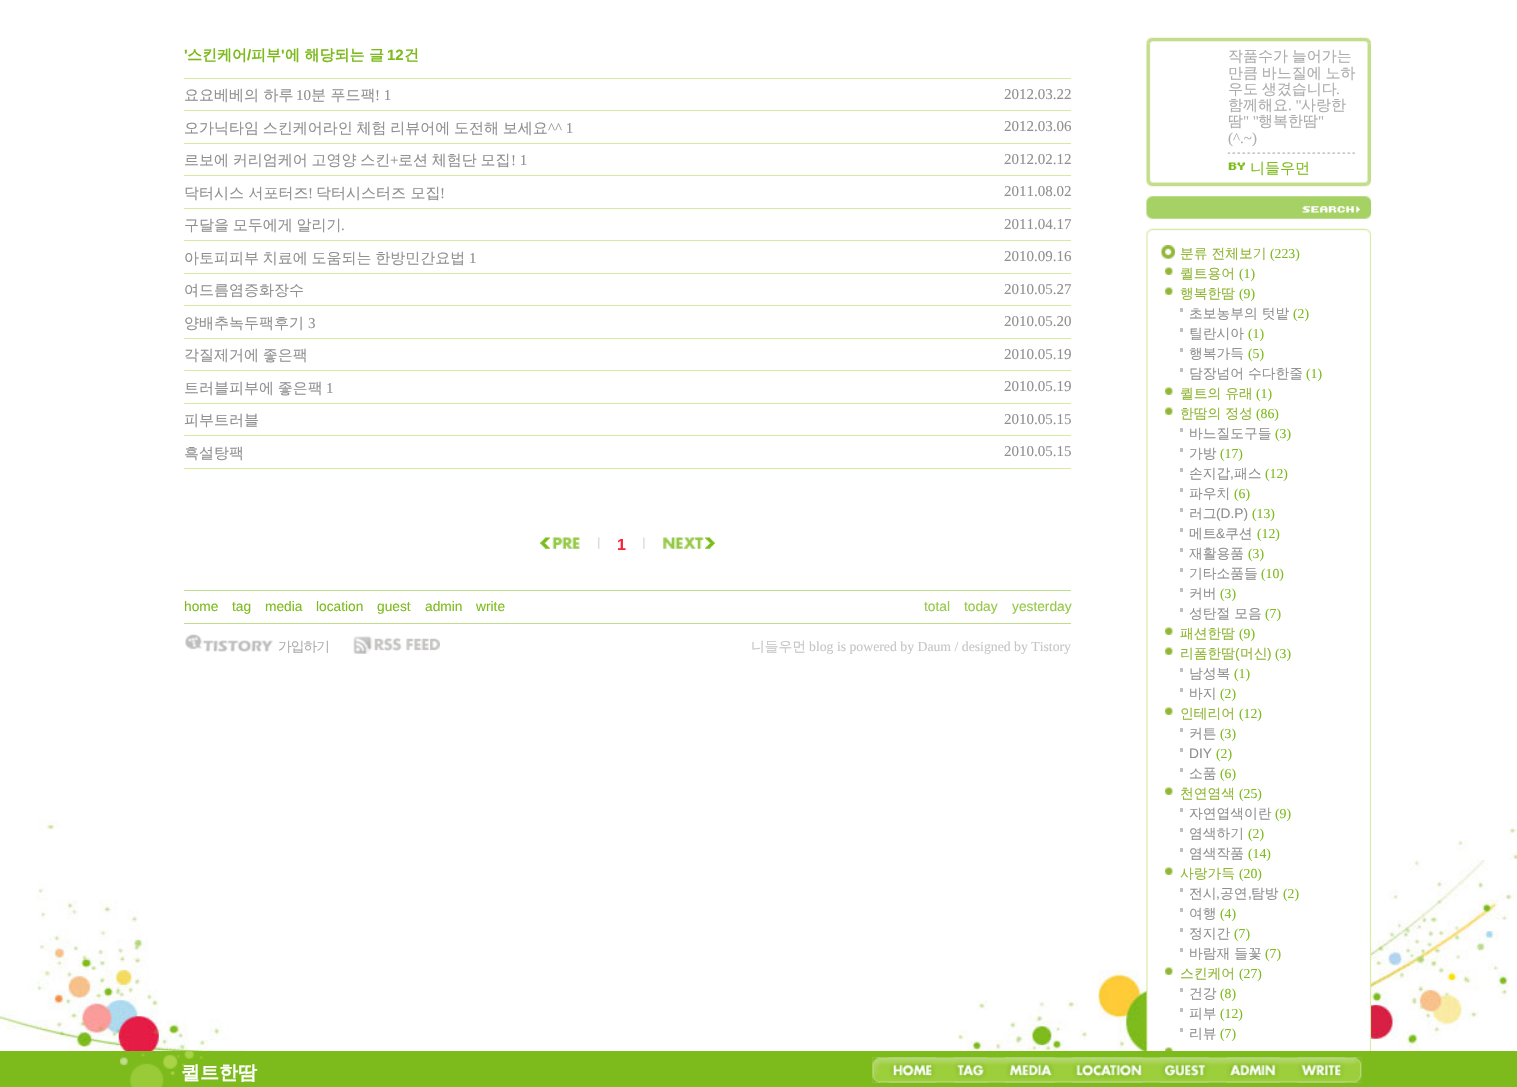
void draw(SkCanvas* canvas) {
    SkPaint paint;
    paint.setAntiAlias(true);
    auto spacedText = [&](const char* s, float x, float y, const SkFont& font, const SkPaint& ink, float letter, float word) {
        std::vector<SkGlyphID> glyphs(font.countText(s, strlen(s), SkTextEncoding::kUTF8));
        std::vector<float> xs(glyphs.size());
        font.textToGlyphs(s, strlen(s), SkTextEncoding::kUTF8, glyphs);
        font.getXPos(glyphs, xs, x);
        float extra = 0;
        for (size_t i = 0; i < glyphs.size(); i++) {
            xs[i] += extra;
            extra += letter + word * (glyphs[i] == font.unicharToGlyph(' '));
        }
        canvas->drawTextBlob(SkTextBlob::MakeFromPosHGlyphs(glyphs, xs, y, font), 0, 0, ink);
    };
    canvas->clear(0xFFFFFFFF);
    canvas->drawImageRect(SkImages::DeferredFromEncodedData(SkData::MakeFromFileName("img1.png")), SkRect::MakeXYWH(0, 820, 1517, 231), SkSamplingOptions());
    SkFont font1(fontMgr->matchFamilyStyle("Liberation Sans", SkFontStyle::Bold()), 15);
    font1.setSubpixel(true);
    paint.setColor(0xFF7DBB1C);
    canvas->drawString("'", 184, 60, font1, paint);
    SkFont font2(fontMgr->matchFamilyStyle("WenQuanYi Zen Hei", SkFontStyle::Bold()), 15);
    font2.setSubpixel(true);
    canvas->drawString("스킨케어", 187, 60, font2, paint);
    canvas->drawString("/", 247, 60, font1, paint);
    canvas->drawString("피부", 251, 60, font2, paint);
    canvas->drawString("'", 281, 60, font1, paint);
    canvas->drawString("에 해당되는 글", 285, 60, font2, paint);
    canvas->drawString("12", 387, 60, font1, paint);
    canvas->drawString("건", 404, 60, font2, paint);
    paint.setColor(0xFFD3EAA0);
    canvas->drawRect(SkRect::MakeXYWH(184, 78, 887, 1), paint);
    canvas->drawRect(SkRect::MakeXYWH(184, 110, 887, 1), paint);
    SkFont font3(fontMgr->matchFamilyStyle("WenQuanYi Zen Hei", SkFontStyle(500, SkFontStyle::kNormal_Width, SkFontStyle::kUpright_Slant)), 15);
    font3.setSubpixel(true);
    paint.setColor(0xFF909090);
    canvas->drawString("요요베베의 하루", 184, 100, font3, paint);
    SkFont font4(fontMgr->matchFamilyStyle("Liberation Serif", SkFontStyle::Normal()), 15);
    font4.setSubpixel(true);
    canvas->drawString("10", 296, 100, font4, paint);
    canvas->drawString("분 푸드팩", 311, 100, font3, paint);
    canvas->drawString("! 1", 375, 100, font4, paint);
    canvas->drawString("2012.03.22", 1004, 99, font4, paint);
    paint.setColor(0xFFD3EAA0);
    canvas->drawRect(SkRect::MakeXYWH(184, 143, 887, 1), paint);
    paint.setColor(0xFF909090);
    spacedText("오가닉타임 스킨케어라인 체험 리뷰어에 도전해 보세요", 184, 133, font3, paint, 0, -0.75f);
    canvas->drawString("^^ 1", 548, 133, font4, paint);
    canvas->drawString("2012.03.06", 1004, 131, font4, paint);
    paint.setColor(0xFFD3EAA0);
    canvas->drawRect(SkRect::MakeXYWH(184, 175, 887, 1), paint);
    paint.setColor(0xFF909090);
    spacedText("르보에 커리엄케어 고영양 스킨", 184, 165, font3, paint, 0, -0.75f);
    canvas->drawString("+", 390, 165, font4, paint);
    spacedText("로션 체험단 모집", 398, 165, font3, paint, 0, -0.75f);
    canvas->drawString("! 1", 511, 165, font4, paint);
    canvas->drawString("2012.02.12", 1004, 164, font4, paint);
    paint.setColor(0xFFD3EAA0);
    canvas->drawRect(SkRect::MakeXYWH(184, 208, 887, 1), paint);
    paint.setColor(0xFF909090);
    canvas->drawString("닥터시스 서포터즈", 184, 198, font3, paint);
    canvas->drawString("!", 308, 198, font4, paint);
    canvas->drawString("닥터시스터즈 모집", 316, 198, font3, paint);
    canvas->drawString("!", 440, 198, font4, paint);
    canvas->drawString("2011.08.02", 1004, 196, font4, paint);
    paint.setColor(0xFFD3EAA0);
    canvas->drawRect(SkRect::MakeXYWH(184, 240, 887, 1), paint);
    paint.setColor(0xFF909090);
    spacedText("구달을 모두에게 알리기", 184, 230, font3, paint, 0, -0.75f);
    canvas->drawString(".", 341, 230, font4, paint);
    canvas->drawString("2011.04.17", 1004, 229, font4, paint);
    paint.setColor(0xFFD3EAA0);
    canvas->drawRect(SkRect::MakeXYWH(184, 273, 887, 1), paint);
    paint.setColor(0xFF909090);
    spacedText("아토피피부 치료에 도움되는 한방민간요법", 184, 263, font3, paint, 0, -0.75f);
    canvas->drawString("1", 469, 263, font4, paint);
    canvas->drawString("2010.09.16", 1004, 261, font4, paint);
    paint.setColor(0xFFD3EAA0);
    canvas->drawRect(SkRect::MakeXYWH(184, 305, 887, 1), paint);
    paint.setColor(0xFF909090);
    canvas->drawString("여드름염증화장수", 184, 295, font3, paint);
    canvas->drawString("2010.05.27", 1004, 294, font4, paint);
    paint.setColor(0xFFD3EAA0);
    canvas->drawRect(SkRect::MakeXYWH(184, 338, 887, 1), paint);
    paint.setColor(0xFF909090);
    canvas->drawString("양배추녹두팩후기", 184, 328, font3, paint);
    canvas->drawString("3", 308, 328, font4, paint);
    canvas->drawString("2010.05.20", 1004, 326, font4, paint);
    paint.setColor(0xFFD3EAA0);
    canvas->drawRect(SkRect::MakeXYWH(184, 370, 887, 1), paint);
    paint.setColor(0xFF909090);
    spacedText("각질제거에 좋은팩", 184, 360, font3, paint, 0, -0.75f);
    canvas->drawString("2010.05.19", 1004, 359, font4, paint);
    paint.setColor(0xFFD3EAA0);
    canvas->drawRect(SkRect::MakeXYWH(184, 403, 887, 1), paint);
    paint.setColor(0xFF909090);
    spacedText("트러블피부에 좋은팩", 184, 393, font3, paint, 0, -0.75f);
    canvas->drawString("1", 326, 393, font4, paint);
    canvas->drawString("2010.05.19", 1004, 391, font4, paint);
    paint.setColor(0xFFD3EAA0);
    canvas->drawRect(SkRect::MakeXYWH(184, 435, 887, 1), paint);
    paint.setColor(0xFF909090);
    canvas->drawString("피부트러블", 184, 425, font3, paint);
    canvas->drawString("2010.05.15", 1004, 424, font4, paint);
    paint.setColor(0xFFD3EAA0);
    canvas->drawRect(SkRect::MakeXYWH(184, 468, 887, 1), paint);
    paint.setColor(0xFF909090);
    canvas->drawString("흑설탕팩", 184, 458, font3, paint);
    canvas->drawString("2010.05.15", 1004, 456, font4, paint);
    canvas->drawImageRect(SkImages::DeferredFromEncodedData(SkData::MakeFromFileName("img2.png")), SkRect::MakeXYWH(540, 537, 60, 12), SkSamplingOptions());
    SkFont font5(fontMgr->matchFamilyStyle("Liberation Sans", SkFontStyle::Bold()), 16);
    font5.setSubpixel(true);
    paint.setColor(0xFFFA2335);
    canvas->drawString("1", 617, 550, font5, paint);
    canvas->drawImageRect(SkImages::DeferredFromEncodedData(SkData::MakeFromFileName("img3.png")), SkRect::MakeXYWH(643, 537, 72, 12), SkSamplingOptions());
    paint.setColor(0xFFBEDD8D);
    canvas->drawRect(SkRect::MakeXYWH(184, 590, 887, 1), paint);
    canvas->drawRect(SkRect::MakeXYWH(184, 623, 887, 1), paint);
    SkFont font6(fontMgr->matchFamilyStyle("Liberation Sans", SkFontStyle::Normal()), 13.75f);
    font6.setSubpixel(true);
    paint.setColor(0xFF7DBB1C);
    canvas->drawString("home", 184, 611, font6, paint);
    canvas->drawString("tag", 232, 611, font6, paint);
    canvas->drawString("media", 265, 611, font6, paint);
    canvas->drawString("location", 316, 611, font6, paint);
    canvas->drawString("guest", 377, 611, font6, paint);
    canvas->drawString("admin", 425, 611, font6, paint);
    canvas->drawString("write", 476, 611, font6, paint);
    paint.setColor(0xFF97C949);
    canvas->drawString("total", 924, 611, font6, paint);
    canvas->drawString("today", 964, 611, font6, paint);
    canvas->drawString("yesterday", 1012, 611, font6, paint);
    canvas->drawImageRect(SkImages::DeferredFromEncodedData(SkData::MakeFromFileName("img4.png")), SkRect::MakeXYWH(185, 634, 88, 18), SkSamplingOptions());
    SkFont font7(fontMgr->matchFamilyStyle("WenQuanYi Zen Hei", SkFontStyle(500, SkFontStyle::kNormal_Width, SkFontStyle::kUpright_Slant)), 13.75f);
    font7.setSubpixel(true);
    paint.setColor(0xFFACACAC);
    spacedText("가입하기", 278, 651, font7, paint, -1, 0);
    canvas->drawImageRect(SkImages::DeferredFromEncodedData(SkData::MakeFromFileName("img5.png")), SkRect::MakeXYWH(353, 636, 87, 18), SkSamplingOptions());
    paint.setColor(0xFFC6C6C6);
    canvas->drawString("니들우먼", 751, 651, font7, paint);
    SkFont font8(fontMgr->matchFamilyStyle("Liberation Serif", SkFontStyle::Normal()), 13.75f);
    font8.setSubpixel(true);
    canvas->drawString("blog is powered by Daum / designed by Tistory", 809, 651, font8, paint);
    canvas->drawImageRect(SkImages::DeferredFromEncodedData(SkData::MakeFromFileName("img6.png")), SkRect::MakeXYWH(1146, 37, 226, 7), SkSamplingOptions());
    canvas->drawImageRect(SkImages::DeferredFromEncodedData(SkData::MakeFromFileName("img7.png")), SkRect::MakeXYWH(1146, 43, 226, 137), SkSamplingOptions());
    canvas->drawImageRect(SkImages::DeferredFromEncodedData(SkData::MakeFromFileName("img8.png")), SkRect::MakeXYWH(1227, 152, 128, 2), SkSamplingOptions());
    paint.setColor(0xFFACACAC);
    spacedText("작품수가 늘어가는", 1228, 61, font3, paint, 0, -0.75f);
    spacedText("만큼 바느질에 노하", 1228, 78, font3, paint, 0, -0.75f);
    spacedText("우도 생겼습니다", 1228, 94, font3, paint, 0, -0.75f);
    canvas->drawString(".", 1336, 94, font4, paint);
    canvas->drawString("함께해요", 1228, 110, font3, paint);
    canvas->drawString(". \"", 1288, 110, font4, paint);
    canvas->drawString("사랑한", 1301, 110, font3, paint);
    canvas->drawString("땀", 1228, 126, font3, paint);
    canvas->drawString("\" \"", 1243, 126, font4, paint);
    canvas->drawString("행복한땀", 1258, 126, font3, paint);
    canvas->drawString("\"", 1318, 126, font4, paint);
    canvas->drawString("(^.~)", 1228, 143, font4, paint);
    canvas->drawImageRect(SkImages::DeferredFromEncodedData(SkData::MakeFromFileName("img9.png")), SkRect::MakeXYWH(1228, 162, 17, 8), SkSamplingOptions());
    paint.setColor(0xFF7DBB1C);
    canvas->drawString("니들우먼", 1250, 173, font3, paint);
    canvas->drawImageRect(SkImages::DeferredFromEncodedData(SkData::MakeFromFileName("img10.png")), SkRect::MakeXYWH(1146, 180, 226, 7), SkSamplingOptions());
    canvas->drawImageRect(SkImages::DeferredFromEncodedData(SkData::MakeFromFileName("img11.png")), SkRect::MakeXYWH(1146, 196, 226, 23), SkSamplingOptions());
    canvas->drawImageRect(SkImages::DeferredFromEncodedData(SkData::MakeFromFileName("img12.png")), SkRect::MakeXYWH(1302, 206, 58, 7), SkSamplingOptions());
    canvas->drawImageRect(SkImages::DeferredFromEncodedData(SkData::MakeFromFileName("img13.png")), SkRect::MakeXYWH(1146, 228, 226, 7), SkSamplingOptions());
    canvas->drawImageRect(SkImages::DeferredFromEncodedData(SkData::MakeFromFileName("img14.png")), SkRect::MakeXYWH(1146, 235, 226, 816), SkSamplingOptions());
    canvas->drawImageRect(SkImages::DeferredFromEncodedData(SkData::MakeFromFileName("img15.png")), SkRect::MakeXYWH(1161, 245, 14, 14), SkSamplingOptions());
    paint.setColor(0xFF90B633);
    canvas->drawString("분류 전체보기", 1180, 258, font7, paint);
    paint.setColor(0xFF7DBB1C);
    canvas->drawString("(223)", 1270, 258, font8, paint);
    canvas->drawImageRect(SkImages::DeferredFromEncodedData(SkData::MakeFromFileName("img16.png")), SkRect::MakeXYWH(1165, 267, 8, 8), SkSamplingOptions());
    paint.setColor(0xFF90B633);
    canvas->drawString("퀼트용어", 1180, 278, font7, paint);
    paint.setColor(0xFF7DBB1C);
    canvas->drawString("(1)", 1239, 278, font8, paint);
    canvas->drawImageRect(SkImages::DeferredFromEncodedData(SkData::MakeFromFileName("img16.png")), SkRect::MakeXYWH(1165, 287, 8, 8), SkSamplingOptions());
    paint.setColor(0xFF90B633);
    canvas->drawString("행복한땀", 1180, 298, font7, paint);
    paint.setColor(0xFF7DBB1C);
    canvas->drawString("(9)", 1239, 298, font8, paint);
    paint.setColor(0xFF909090);
    canvas->drawString("초보농부의 텃밭", 1189, 318, font7, paint);
    paint.setColor(0xFFBFBFBF);
    canvas->drawRect(SkRect::MakeXYWH(1180, 308, 3, 4), paint);
    paint.setColor(0xFF7DBB1C);
    canvas->drawString("(2)", 1293, 318, font8, paint);
    paint.setColor(0xFF909090);
    canvas->drawString("틸란시아", 1189, 338, font7, paint);
    paint.setColor(0xFFBFBFBF);
    canvas->drawRect(SkRect::MakeXYWH(1180, 328, 3, 4), paint);
    paint.setColor(0xFF7DBB1C);
    canvas->drawString("(1)", 1248, 338, font8, paint);
    paint.setColor(0xFF909090);
    canvas->drawString("행복가득", 1189, 358, font7, paint);
    paint.setColor(0xFFBFBFBF);
    canvas->drawRect(SkRect::MakeXYWH(1180, 348, 3, 4), paint);
    paint.setColor(0xFF7DBB1C);
    canvas->drawString("(5)", 1248, 358, font8, paint);
    paint.setColor(0xFF909090);
    canvas->drawString("담장넘어 수다한줄", 1189, 378, font7, paint);
    paint.setColor(0xFFBFBFBF);
    canvas->drawRect(SkRect::MakeXYWH(1180, 368, 3, 4), paint);
    paint.setColor(0xFF7DBB1C);
    canvas->drawString("(1)", 1306, 378, font8, paint);
    canvas->drawImageRect(SkImages::DeferredFromEncodedData(SkData::MakeFromFileName("img16.png")), SkRect::MakeXYWH(1165, 387, 8, 8), SkSamplingOptions());
    paint.setColor(0xFF90B633);
    canvas->drawString("퀼트의 유래", 1180, 398, font7, paint);
    paint.setColor(0xFF7DBB1C);
    canvas->drawString("(1)", 1256, 398, font8, paint);
    canvas->drawImageRect(SkImages::DeferredFromEncodedData(SkData::MakeFromFileName("img16.png")), SkRect::MakeXYWH(1165, 407, 8, 8), SkSamplingOptions());
    paint.setColor(0xFF90B633);
    canvas->drawString("한땀의 정성", 1180, 418, font7, paint);
    paint.setColor(0xFF7DBB1C);
    canvas->drawString("(86)", 1256, 418, font8, paint);
    paint.setColor(0xFF909090);
    canvas->drawString("바느질도구들", 1189, 438, font7, paint);
    paint.setColor(0xFFBFBFBF);
    canvas->drawRect(SkRect::MakeXYWH(1180, 428, 3, 4), paint);
    paint.setColor(0xFF7DBB1C);
    canvas->drawString("(3)", 1275, 438, font8, paint);
    paint.setColor(0xFF909090);
    canvas->drawString("가방", 1189, 458, font7, paint);
    paint.setColor(0xFFBFBFBF);
    canvas->drawRect(SkRect::MakeXYWH(1180, 448, 3, 4), paint);
    paint.setColor(0xFF7DBB1C);
    canvas->drawString("(17)", 1220, 458, font8, paint);
    paint.setColor(0xFF909090);
    canvas->drawString("손지갑", 1189, 478, font7, paint);
    paint.setColor(0xFFBFBFBF);
    canvas->drawRect(SkRect::MakeXYWH(1180, 468, 3, 4), paint);
    paint.setColor(0xFF909090);
    canvas->drawString(",", 1230, 478, font6, paint);
    canvas->drawString("패스", 1234, 478, font7, paint);
    paint.setColor(0xFF7DBB1C);
    canvas->drawString("(12)", 1265, 478, font8, paint);
    paint.setColor(0xFF909090);
    canvas->drawString("파우치", 1189, 498, font7, paint);
    paint.setColor(0xFFBFBFBF);
    canvas->drawRect(SkRect::MakeXYWH(1180, 488, 3, 4), paint);
    paint.setColor(0xFF7DBB1C);
    canvas->drawString("(6)", 1234, 498, font8, paint);
    paint.setColor(0xFF909090);
    canvas->drawString("러그", 1189, 518, font7, paint);
    paint.setColor(0xFFBFBFBF);
    canvas->drawRect(SkRect::MakeXYWH(1180, 508, 3, 4), paint);
    paint.setColor(0xFF909090);
    canvas->drawString("(D.P)", 1216, 518, font6, paint);
    paint.setColor(0xFF7DBB1C);
    canvas->drawString("(13)", 1252, 518, font8, paint);
    paint.setColor(0xFF909090);
    canvas->drawString("메트", 1189, 538, font7, paint);
    paint.setColor(0xFFBFBFBF);
    canvas->drawRect(SkRect::MakeXYWH(1180, 528, 3, 4), paint);
    paint.setColor(0xFF909090);
    canvas->drawString("&", 1216, 538, font6, paint);
    canvas->drawString("쿠션", 1225, 538, font7, paint);
    paint.setColor(0xFF7DBB1C);
    canvas->drawString("(12)", 1257, 538, font8, paint);
    paint.setColor(0xFF909090);
    canvas->drawString("재활용품", 1189, 558, font7, paint);
    paint.setColor(0xFFBFBFBF);
    canvas->drawRect(SkRect::MakeXYWH(1180, 548, 3, 4), paint);
    paint.setColor(0xFF7DBB1C);
    canvas->drawString("(3)", 1248, 558, font8, paint);
    paint.setColor(0xFF909090);
    canvas->drawString("기타소품들", 1189, 578, font7, paint);
    paint.setColor(0xFFBFBFBF);
    canvas->drawRect(SkRect::MakeXYWH(1180, 568, 3, 4), paint);
    paint.setColor(0xFF7DBB1C);
    canvas->drawString("(10)", 1261, 578, font8, paint);
    paint.setColor(0xFF909090);
    canvas->drawString("커버", 1189, 598, font7, paint);
    paint.setColor(0xFFBFBFBF);
    canvas->drawRect(SkRect::MakeXYWH(1180, 588, 3, 4), paint);
    paint.setColor(0xFF7DBB1C);
    canvas->drawString("(3)", 1220, 598, font8, paint);
    paint.setColor(0xFF909090);
    canvas->drawString("성탄절 모음", 1189, 618, font7, paint);
    paint.setColor(0xFFBFBFBF);
    canvas->drawRect(SkRect::MakeXYWH(1180, 608, 3, 4), paint);
    paint.setColor(0xFF7DBB1C);
    canvas->drawString("(7)", 1265, 618, font8, paint);
    canvas->drawImageRect(SkImages::DeferredFromEncodedData(SkData::MakeFromFileName("img16.png")), SkRect::MakeXYWH(1165, 627, 8, 8), SkSamplingOptions());
    paint.setColor(0xFF90B633);
    canvas->drawString("패션한땀", 1180, 638, font7, paint);
    paint.setColor(0xFF7DBB1C);
    canvas->drawString("(9)", 1239, 638, font8, paint);
    canvas->drawImageRect(SkImages::DeferredFromEncodedData(SkData::MakeFromFileName("img16.png")), SkRect::MakeXYWH(1165, 647, 8, 8), SkSamplingOptions());
    paint.setColor(0xFF90B633);
    canvas->drawString("리폼한땀", 1180, 658, font7, paint);
    canvas->drawString("(", 1235, 658, font6, paint);
    canvas->drawString("머신", 1240, 658, font7, paint);
    canvas->drawString(")", 1267, 658, font6, paint);
    paint.setColor(0xFF7DBB1C);
    canvas->drawString("(3)", 1275, 658, font8, paint);
    paint.setColor(0xFF909090);
    canvas->drawString("남성복", 1189, 678, font7, paint);
    paint.setColor(0xFFBFBFBF);
    canvas->drawRect(SkRect::MakeXYWH(1180, 668, 3, 4), paint);
    paint.setColor(0xFF7DBB1C);
    canvas->drawString("(1)", 1234, 678, font8, paint);
    paint.setColor(0xFF909090);
    canvas->drawString("바지", 1189, 698, font7, paint);
    paint.setColor(0xFFBFBFBF);
    canvas->drawRect(SkRect::MakeXYWH(1180, 688, 3, 4), paint);
    paint.setColor(0xFF7DBB1C);
    canvas->drawString("(2)", 1220, 698, font8, paint);
    canvas->drawImageRect(SkImages::DeferredFromEncodedData(SkData::MakeFromFileName("img16.png")), SkRect::MakeXYWH(1165, 707, 8, 8), SkSamplingOptions());
    paint.setColor(0xFF90B633);
    canvas->drawString("인테리어", 1180, 718, font7, paint);
    paint.setColor(0xFF7DBB1C);
    canvas->drawString("(12)", 1239, 718, font8, paint);
    paint.setColor(0xFF909090);
    canvas->drawString("커튼", 1189, 738, font7, paint);
    paint.setColor(0xFFBFBFBF);
    canvas->drawRect(SkRect::MakeXYWH(1180, 728, 3, 4), paint);
    paint.setColor(0xFF7DBB1C);
    canvas->drawString("(3)", 1220, 738, font8, paint);
    paint.setColor(0xFF909090);
    canvas->drawString("DIY", 1189, 758, font6, paint);
    paint.setColor(0xFFBFBFBF);
    canvas->drawRect(SkRect::MakeXYWH(1180, 748, 3, 4), paint);
    paint.setColor(0xFF7DBB1C);
    canvas->drawString("(2)", 1216, 758, font8, paint);
    paint.setColor(0xFF909090);
    canvas->drawString("소품", 1189, 778, font7, paint);
    paint.setColor(0xFFBFBFBF);
    canvas->drawRect(SkRect::MakeXYWH(1180, 768, 3, 4), paint);
    paint.setColor(0xFF7DBB1C);
    canvas->drawString("(6)", 1220, 778, font8, paint);
    canvas->drawImageRect(SkImages::DeferredFromEncodedData(SkData::MakeFromFileName("img16.png")), SkRect::MakeXYWH(1165, 787, 8, 8), SkSamplingOptions());
    paint.setColor(0xFF90B633);
    canvas->drawString("천연염색", 1180, 798, font7, paint);
    paint.setColor(0xFF7DBB1C);
    canvas->drawString("(25)", 1239, 798, font8, paint);
    paint.setColor(0xFF909090);
    canvas->drawString("자연엽색이란", 1189, 818, font7, paint);
    paint.setColor(0xFFBFBFBF);
    canvas->drawRect(SkRect::MakeXYWH(1180, 808, 3, 4), paint);
    paint.setColor(0xFF7DBB1C);
    canvas->drawString("(9)", 1275, 818, font8, paint);
    paint.setColor(0xFF909090);
    canvas->drawString("염색하기", 1189, 838, font7, paint);
    paint.setColor(0xFFBFBFBF);
    canvas->drawRect(SkRect::MakeXYWH(1180, 828, 3, 4), paint);
    paint.setColor(0xFF7DBB1C);
    canvas->drawString("(2)", 1248, 838, font8, paint);
    paint.setColor(0xFF909090);
    canvas->drawString("염색작품", 1189, 858, font7, paint);
    paint.setColor(0xFFBFBFBF);
    canvas->drawRect(SkRect::MakeXYWH(1180, 848, 3, 4), paint);
    paint.setColor(0xFF7DBB1C);
    canvas->drawString("(14)", 1248, 858, font8, paint);
    canvas->drawImageRect(SkImages::DeferredFromEncodedData(SkData::MakeFromFileName("img16.png")), SkRect::MakeXYWH(1165, 867, 8, 8), SkSamplingOptions());
    paint.setColor(0xFF90B633);
    canvas->drawString("사랑가득", 1180, 878, font7, paint);
    paint.setColor(0xFF7DBB1C);
    canvas->drawString("(20)", 1239, 878, font8, paint);
    paint.setColor(0xFF909090);
    canvas->drawString("전시", 1189, 898, font7, paint);
    paint.setColor(0xFFBFBFBF);
    canvas->drawRect(SkRect::MakeXYWH(1180, 888, 3, 4), paint);
    paint.setColor(0xFF909090);
    canvas->drawString(",", 1216, 898, font6, paint);
    canvas->drawString("공연", 1220, 898, font7, paint);
    canvas->drawString(",", 1248, 898, font6, paint);
    canvas->drawString("탐방", 1251, 898, font7, paint);
    paint.setColor(0xFF7DBB1C);
    canvas->drawString("(2)", 1283, 898, font8, paint);
    paint.setColor(0xFF909090);
    canvas->drawString("여행", 1189, 918, font7, paint);
    paint.setColor(0xFFBFBFBF);
    canvas->drawRect(SkRect::MakeXYWH(1180, 908, 3, 4), paint);
    paint.setColor(0xFF7DBB1C);
    canvas->drawString("(4)", 1220, 918, font8, paint);
    paint.setColor(0xFF909090);
    canvas->drawString("정지간", 1189, 938, font7, paint);
    paint.setColor(0xFFBFBFBF);
    canvas->drawRect(SkRect::MakeXYWH(1180, 928, 3, 4), paint);
    paint.setColor(0xFF7DBB1C);
    canvas->drawString("(7)", 1234, 938, font8, paint);
    paint.setColor(0xFF909090);
    canvas->drawString("바람재 들꽃", 1189, 958, font7, paint);
    paint.setColor(0xFFBFBFBF);
    canvas->drawRect(SkRect::MakeXYWH(1180, 948, 3, 4), paint);
    paint.setColor(0xFF7DBB1C);
    canvas->drawString("(7)", 1265, 958, font8, paint);
    canvas->drawImageRect(SkImages::DeferredFromEncodedData(SkData::MakeFromFileName("img16.png")), SkRect::MakeXYWH(1165, 967, 8, 8), SkSamplingOptions());
    paint.setColor(0xFF90B633);
    canvas->drawString("스킨케어", 1180, 978, font7, paint);
    paint.setColor(0xFF7DBB1C);
    canvas->drawString("(27)", 1239, 978, font8, paint);
    paint.setColor(0xFF909090);
    canvas->drawString("건강", 1189, 998, font7, paint);
    paint.setColor(0xFFBFBFBF);
    canvas->drawRect(SkRect::MakeXYWH(1180, 988, 3, 4), paint);
    paint.setColor(0xFF7DBB1C);
    canvas->drawString("(8)", 1220, 998, font8, paint);
    paint.setColor(0xFF909090);
    canvas->drawString("피부", 1189, 1018, font7, paint);
    paint.setColor(0xFFBFBFBF);
    canvas->drawRect(SkRect::MakeXYWH(1180, 1008, 3, 4), paint);
    paint.setColor(0xFF7DBB1C);
    canvas->drawString("(12)", 1220, 1018, font8, paint);
    paint.setColor(0xFF909090);
    canvas->drawString("리뷰", 1189, 1038, font7, paint);
    paint.setColor(0xFFBFBFBF);
    canvas->drawRect(SkRect::MakeXYWH(1180, 1028, 3, 4), paint);
    paint.setColor(0xFF7DBB1C);
    canvas->drawString("(7)", 1220, 1038, font8, paint);
    canvas->drawImageRect(SkImages::DeferredFromEncodedData(SkData::MakeFromFileName("img17.png")), SkRect::MakeXYWH(1165, 1047, 8, 4), SkSamplingOptions());
    canvas->drawRect(SkRect::MakeXYWH(0, 1051, 1517, 36), paint);
    canvas->drawImageRect(SkImages::DeferredFromEncodedData(SkData::MakeFromFileName("img18.png")), SkRect::MakeXYWH(120, 1051, 83, 36), SkSamplingOptions());
    SkFont font9(fontMgr->matchFamilyStyle("WenQuanYi Zen Hei", SkFontStyle::Bold()), 19);
    font9.setSubpixel(true);
    paint.setColor(0xFFFFFFFF);
    canvas->drawString("퀼트한땀", 181, 1079, font9, paint);
    canvas->drawImageRect(SkImages::DeferredFromEncodedData(SkData::MakeFromFileName("img19.png")), SkRect::MakeXYWH(872, 1057, 490, 26), SkSamplingOptions());
    canvas->drawImageRect(SkImages::DeferredFromEncodedData(SkData::MakeFromFileName("img20.png")), SkRect::MakeXYWH(872, 1057, 8, 26), SkSamplingOptions());
    canvas->drawImageRect(SkImages::DeferredFromEncodedData(SkData::MakeFromFileName("img21.png")), SkRect::MakeXYWH(888, 1057, 49, 26), SkSamplingOptions());
    canvas->drawImageRect(SkImages::DeferredFromEncodedData(SkData::MakeFromFileName("img22.png")), SkRect::MakeXYWH(953, 1057, 35, 26), SkSamplingOptions());
    canvas->drawImageRect(SkImages::DeferredFromEncodedData(SkData::MakeFromFileName("img23.png")), SkRect::MakeXYWH(1005, 1057, 50, 26), SkSamplingOptions());
    canvas->drawImageRect(SkImages::DeferredFromEncodedData(SkData::MakeFromFileName("img24.png")), SkRect::MakeXYWH(1072, 1057, 71, 26), SkSamplingOptions());
    canvas->drawImageRect(SkImages::DeferredFromEncodedData(SkData::MakeFromFileName("img25.png")), SkRect::MakeXYWH(1160, 1057, 49, 26), SkSamplingOptions());
    canvas->drawImageRect(SkImages::DeferredFromEncodedData(SkData::MakeFromFileName("img26.png")), SkRect::MakeXYWH(1226, 1057, 54, 26), SkSamplingOptions());
    canvas->drawImageRect(SkImages::DeferredFromEncodedData(SkData::MakeFromFileName("img27.png")), SkRect::MakeXYWH(1297, 1057, 48, 26), SkSamplingOptions());
    canvas->drawImageRect(SkImages::DeferredFromEncodedData(SkData::MakeFromFileName("img28.png")), SkRect::MakeXYWH(1353, 1057, 9, 26), SkSamplingOptions());
}
